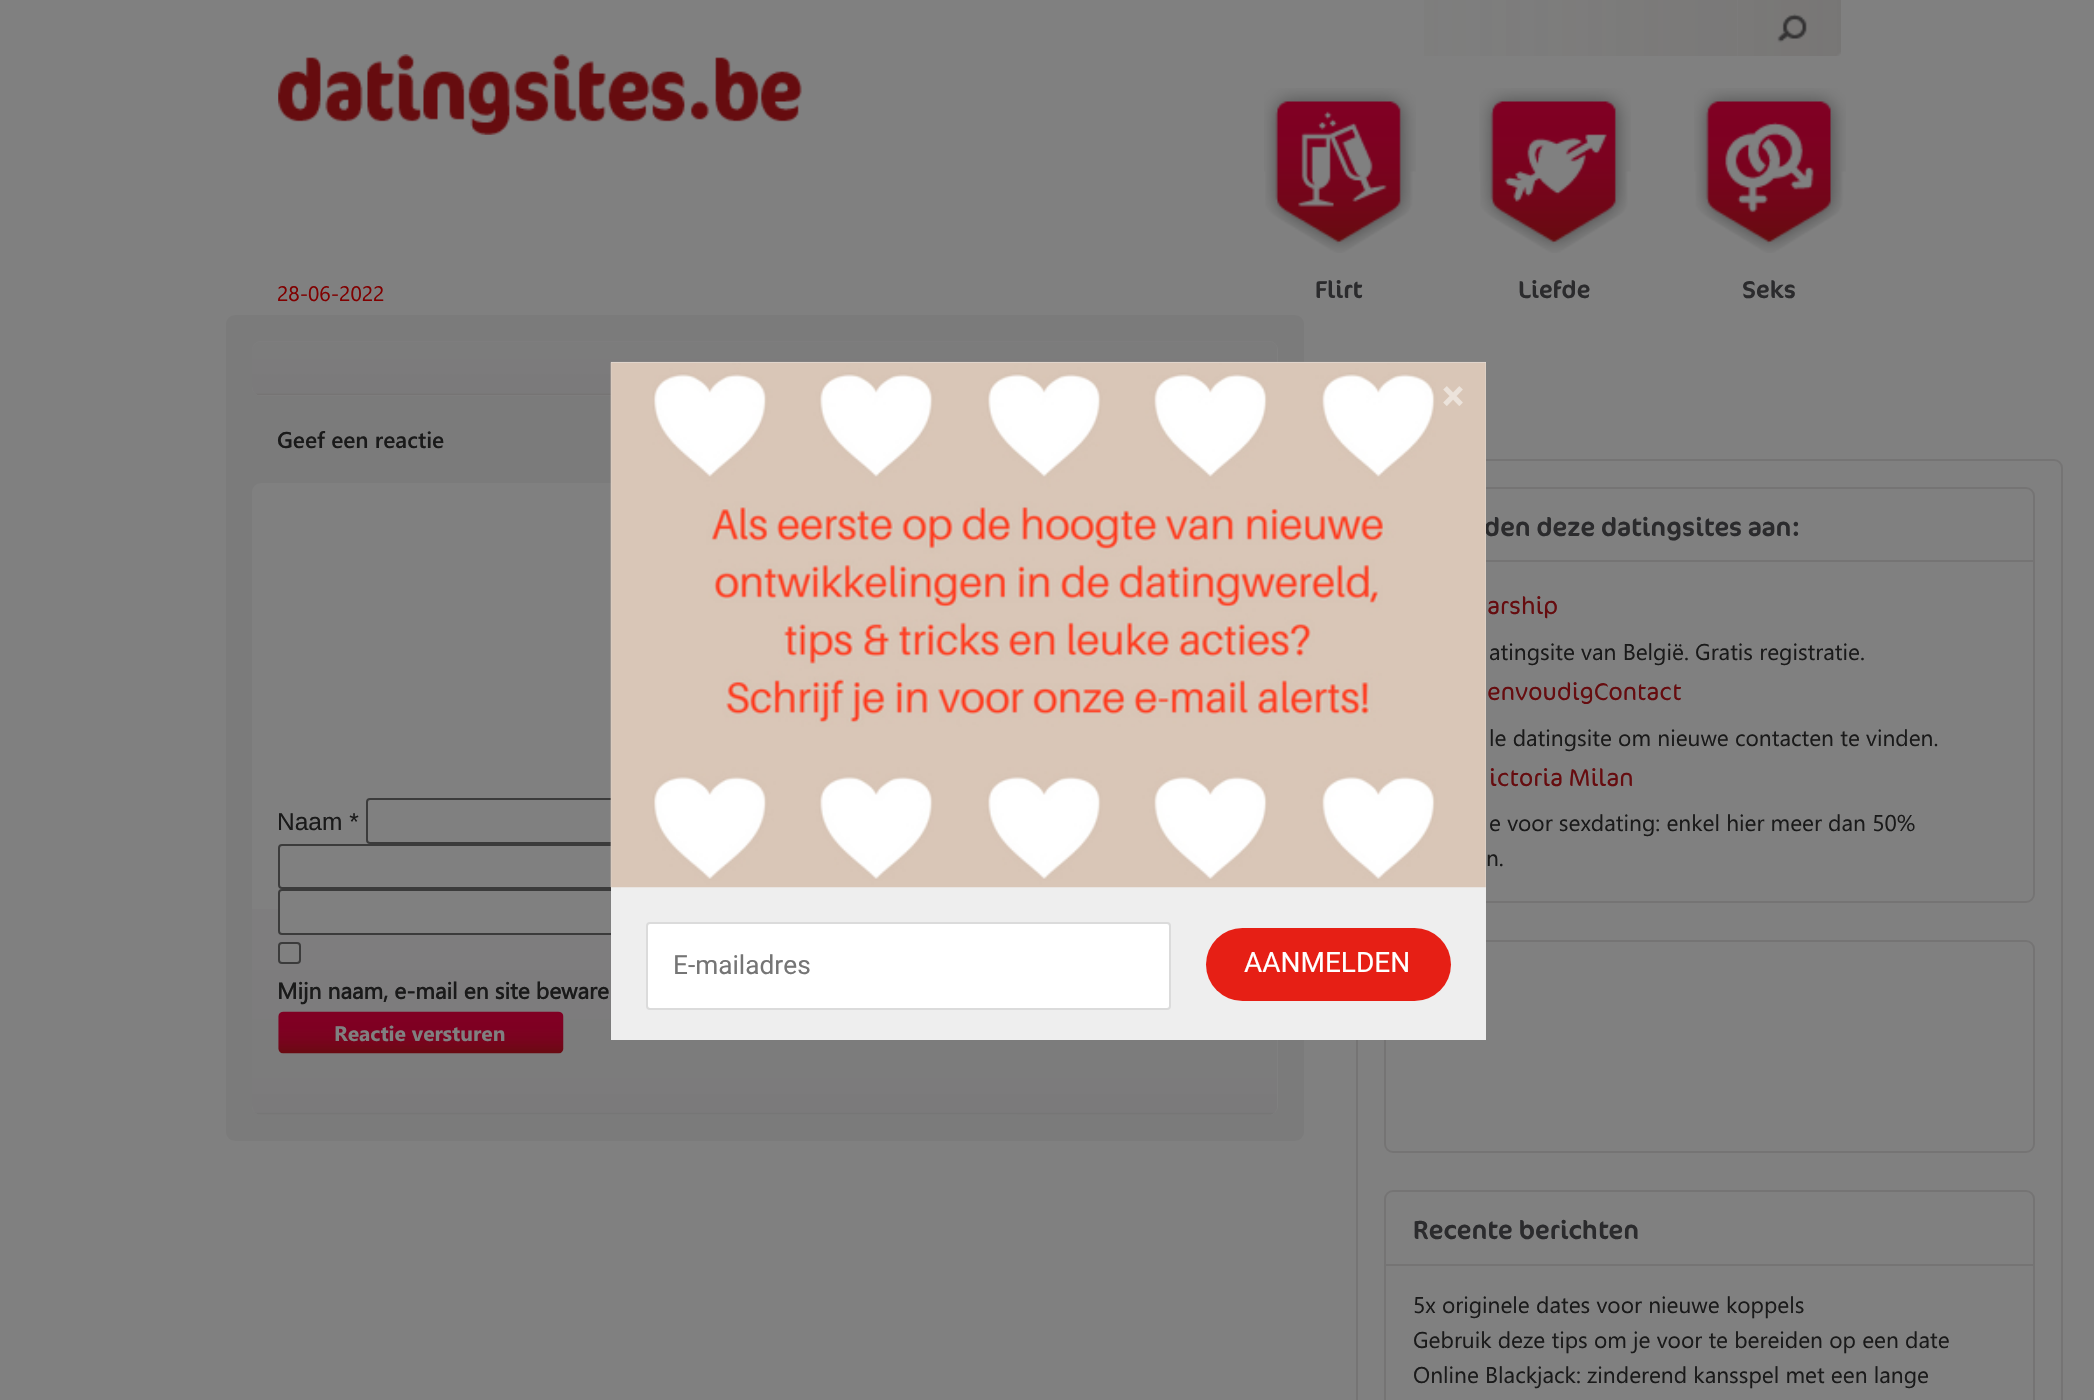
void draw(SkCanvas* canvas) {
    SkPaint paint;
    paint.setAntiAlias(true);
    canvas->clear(0xFF808080);
    canvas->drawImageRect(SkImages::DeferredFromEncodedData(SkData::MakeFromFileName("img1.png")), SkRect::MakeXYWH(1424, 0, 314, 56), SkSamplingOptions());
    canvas->drawImageRect(SkImages::DeferredFromEncodedData(SkData::MakeFromFileName("img2.png")), SkRect::MakeXYWH(1738, 0, 103, 56), SkSamplingOptions());
    canvas->drawImageRect(SkImages::DeferredFromEncodedData(SkData::MakeFromFileName("img3.png")), SkRect::MakeXYWH(278, 54, 524, 81), SkSamplingOptions());
    canvas->drawImageRect(SkImages::DeferredFromEncodedData(SkData::MakeFromFileName("img4.png")), SkRect::MakeXYWH(1264, 88, 152, 165), SkSamplingOptions());
    SkFont font1(fontMgr->matchFamilyStyle("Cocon", SkFontStyle::Normal()), 24.5f);
    font1.setSubpixel(true);
    paint.setColor(0xFF2B2B2D);
    canvas->drawString("Flirt", 1315, 298, font1, paint);
    canvas->drawImageRect(SkImages::DeferredFromEncodedData(SkData::MakeFromFileName("img5.png")), SkRect::MakeXYWH(1479, 88, 152, 165), SkSamplingOptions());
    canvas->drawString("Liefde", 1518, 298, font1, paint);
    canvas->drawImageRect(SkImages::DeferredFromEncodedData(SkData::MakeFromFileName("img6.png")), SkRect::MakeXYWH(1694, 88, 152, 165), SkSamplingOptions());
    canvas->drawString("Seks", 1742, 298, font1, paint);
    SkFont font2(fontMgr->matchFamilyStyle("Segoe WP", SkFontStyle::Normal()), 21);
    font2.setSubpixel(true);
    paint.setColor(0xFF800000);
    canvas->drawString("28-06-2022", 277, 301, font2, paint);
    paint.setColor(0xFF7B7B7B);
    canvas->drawRoundRect(SkRect::MakeXYWH(226, 315, 1078, 826), 9, 9, paint);
    paint.setColor(0xFF808080);
    canvas->drawRoundRect(SkRect::MakeXYWH(252, 341, 1026, 55), 9, 9, paint);
    canvas->drawImageRect(SkImages::DeferredFromEncodedData(SkData::MakeFromFileName("img7.png")), SkRect::MakeXYWH(252, 341, 1025, 55), SkSamplingOptions());
    SkFont font3(fontMgr->matchFamilyStyle("Segoe WP", SkFontStyle(600, SkFontStyle::kNormal_Width, SkFontStyle::kUpright_Slant)), 22.75f);
    font3.setSubpixel(true);
    paint.setColor(0xFF1A1A1A);
    canvas->drawString("Geef een reactie", 277, 448, font3, paint);
    paint.setColor(0xFF808080);
    canvas->drawRoundRect(SkRect::MakeXYWH(252, 483, 1026, 632), 9, 9, paint);
    canvas->drawImageRect(SkImages::DeferredFromEncodedData(SkData::MakeFromFileName("img8.png")), SkRect::MakeXYWH(252, 909, 1025, 206), SkSamplingOptions());
    SkFont font4(fontMgr->matchFamilyStyle("Liberation Sans", SkFontStyle::Normal()), 24.5f);
    font4.setSubpixel(true);
    paint.setColor(0xFF1A1A1A);
    canvas->drawString("Naam *", 277, 830, font4, paint);
    paint.setStyle(SkPaint::kStroke_Style);
    paint.setStrokeWidth(2);
    paint.setColor(0xFF3B3B3B);
    canvas->drawRoundRect(SkRect::MakeXYWH(367, 799, 470, 44), 3, 3, paint);
    canvas->drawRoundRect(SkRect::MakeXYWH(279, 845, 471, 43), 3, 3, paint);
    paint.setStyle(SkPaint::kFill_Style);
    paint.setColor(0xFF808080);
    canvas->drawRoundRect(SkRect::MakeXYWH(279, 890, 471, 44), 3, 3, paint);
    paint.setStyle(SkPaint::kStroke_Style);
    paint.setColor(0xFF3B3B3B);
    canvas->drawRoundRect(SkRect::MakeXYWH(279, 890, 471, 44), 3, 3, paint);
    paint.setStyle(SkPaint::kFill_Style);
    paint.setColor(0xFF808080);
    canvas->drawRoundRect(SkRect::MakeXYWH(279, 943, 21, 20), 3, 3, paint);
    paint.setStyle(SkPaint::kStroke_Style);
    paint.setColor(0xFF3B3B3B);
    canvas->drawRoundRect(SkRect::MakeXYWH(279, 943, 21, 20), 3, 3, paint);
    SkFont font5(fontMgr->matchFamilyStyle("Segoe WP", SkFontStyle::Bold()), 22.75f);
    font5.setSubpixel(true);
    paint.setStyle(SkPaint::kFill_Style);
    paint.setColor(0xFF1A1A1A);
    canvas->drawString("Mijn naam, e-mail en site beware", 277, 999, font5, paint);
    canvas->drawImageRect(SkImages::DeferredFromEncodedData(SkData::MakeFromFileName("img9.png")), SkRect::MakeXYWH(278, 1011, 286, 43), SkSamplingOptions());
    SkFont font6(fontMgr->matchFamilyStyle("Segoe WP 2", SkFontStyle::Bold()), 21);
    font6.setSubpixel(true);
    paint.setColor(0xFF808080);
    canvas->drawString("Reactie versturen", 334, 1041, font6, paint);
    paint.setStyle(SkPaint::kStroke_Style);
    paint.setColor(0xFF757474);
    canvas->drawRoundRect(SkRect::MakeXYWH(1357, 460, 705, 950), 8, 8, paint);
    canvas->drawRoundRect(SkRect::MakeXYWH(1385, 488, 649, 414), 8, 8, paint);
    paint.setStyle(SkPaint::kFill_Style);
    canvas->drawRect(SkRect::MakeXYWH(1486, 560, 548, 2), paint);
    SkFont font7(fontMgr->matchFamilyStyle("Cocon", SkFontStyle::Normal()), 26.25f);
    font7.setSubpixel(true);
    paint.setColor(0xFF2B2B2D);
    canvas->drawString("den deze datingsites aan:", 1484, 536, font7, paint);
    SkFont font8(fontMgr->matchFamilyStyle("Cocon", SkFontStyle(300, SkFontStyle::kNormal_Width, SkFontStyle::kUpright_Slant)), 24.5f);
    font8.setSubpixel(true);
    paint.setColor(0xFF660C0F);
    canvas->drawString("arship", 1487, 614, font8, paint);
    SkFont font9(fontMgr->matchFamilyStyle("Segoe WP", SkFontStyle::Normal()), 22.75f);
    font9.setSubpixel(true);
    paint.setColor(0xFF1A1A1A);
    canvas->drawString("atingsite van België. Gratis registratie.", 1489, 660, font9, paint);
    paint.setColor(0xFF660C0F);
    canvas->drawString("envoudigContact", 1487, 700, font8, paint);
    paint.setColor(0xFF1A1A1A);
    canvas->drawString("le datingsite om nieuwe contacten te vinden.", 1489, 746, font9, paint);
    paint.setColor(0xFF660C0F);
    canvas->drawString("ictoria Milan", 1489, 786, font8, paint);
    paint.setColor(0xFF1A1A1A);
    canvas->drawString("e voor sexdating: enkel hier meer dan 50%", 1489, 831, font9, paint);
    canvas->drawString("n.", 1486, 866, font9, paint);
    paint.setStyle(SkPaint::kStroke_Style);
    paint.setColor(0xFF757474);
    canvas->drawRoundRect(SkRect::MakeXYWH(1385, 941, 649, 211), 8, 8, paint);
    canvas->drawRoundRect(SkRect::MakeXYWH(1385, 1191, 649, 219), 8, 8, paint);
    paint.setStyle(SkPaint::kFill_Style);
    canvas->drawRect(SkRect::MakeXYWH(1386, 1264, 648, 2), paint);
    paint.setColor(0xFF2B2B2D);
    canvas->drawString("Recente berichten", 1413, 1239, font7, paint);
    paint.setColor(0xFF1A1A1A);
    canvas->drawString("5x originele dates voor nieuwe koppels", 1413, 1313, font9, paint);
    canvas->drawString("Gebruik deze tips om je voor te bereiden op een date", 1413, 1348, font9, paint);
    canvas->drawString("Online Blackjack: zinderend kansspel met een lange", 1413, 1383, font9, paint);
    paint.setColor(0xFFEEEEEE);
    canvas->drawRect(SkRect::MakeXYWH(611, 362, 875, 678), paint);
    canvas->drawImageRect(SkImages::DeferredFromEncodedData(SkData::MakeFromFileName("img10.png")), SkRect::MakeXYWH(610, 361, 876, 527), SkSamplingOptions());
    SkFont font10(fontMgr->matchFamilyStyle("Roboto", SkFontStyle::Bold()), 42);
    font10.setSubpixel(true);
    paint.setColor(0xFFECE3DB);
    canvas->drawString("×", 1442, 410, font10, paint);
    paint.setColor(0xFFFFFFFF);
    canvas->drawRoundRect(SkRect::MakeXYWH(647, 923, 523, 86), 3, 3, paint);
    paint.setStyle(SkPaint::kStroke_Style);
    paint.setColor(0xFFDBDBDB);
    canvas->drawRoundRect(SkRect::MakeXYWH(647, 923, 523, 86), 3, 3, paint);
    SkFont font11(fontMgr->matchFamilyStyle("Roboto", SkFontStyle::Normal()), 26.25f);
    font11.setSubpixel(true);
    paint.setStyle(SkPaint::kFill_Style);
    paint.setColor(0xFF757575);
    canvas->drawString("E-mailadres", 673, 974, font11, paint);
    paint.setColor(0xFFE61F15);
    canvas->drawRoundRect(SkRect::MakeXYWH(1206, 928, 245, 73), 36.5f, 36.5f, paint);
    SkFont font12(fontMgr->matchFamilyStyle("Roboto", SkFontStyle::Normal()), 28);
    font12.setSubpixel(true);
    paint.setColor(0xFFFFFFFF);
    canvas->drawString("AANMELDEN", 1244, 972, font12, paint);
}
